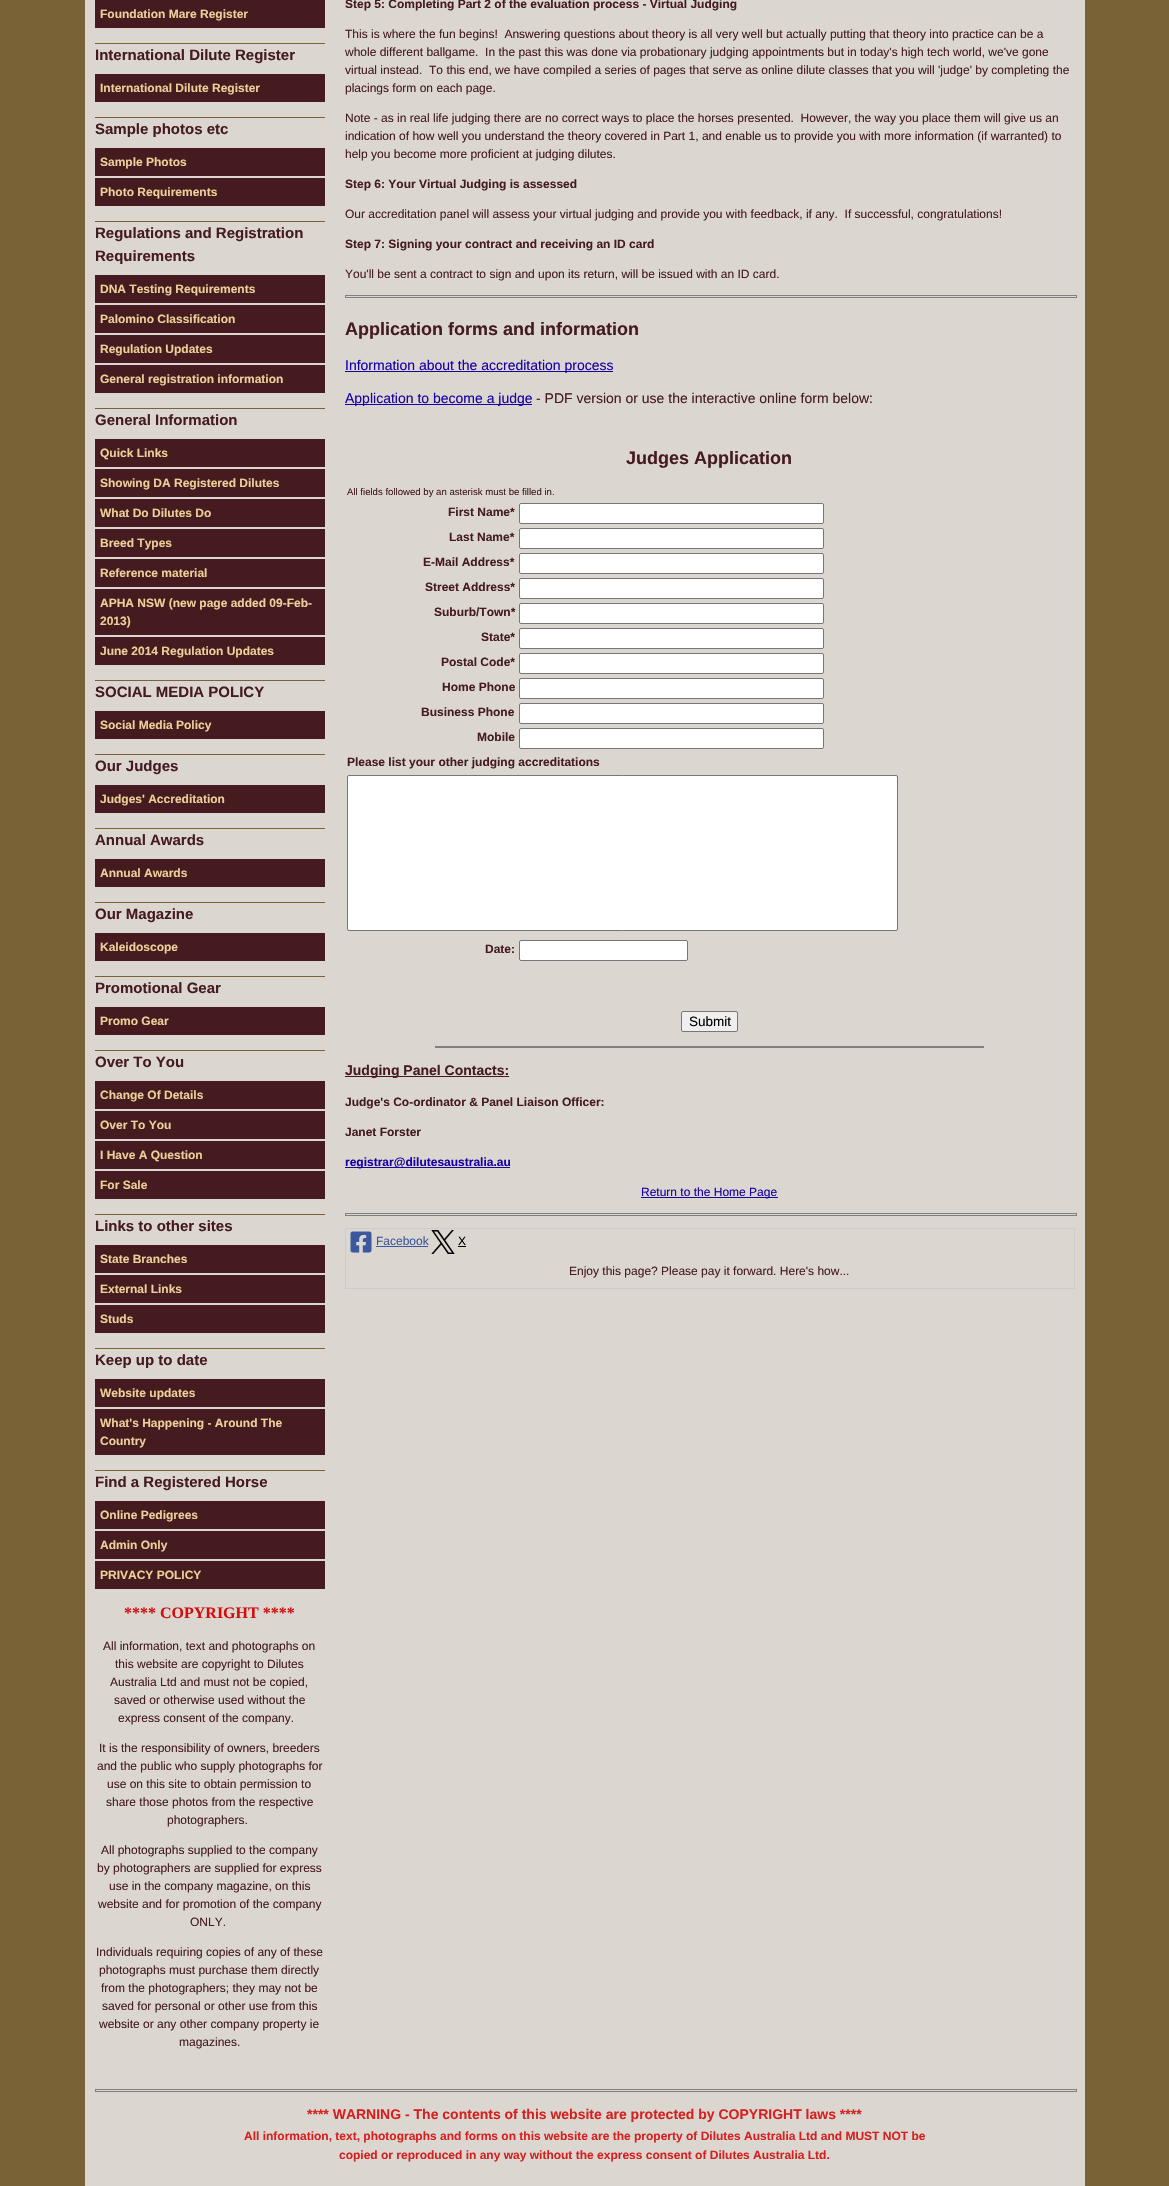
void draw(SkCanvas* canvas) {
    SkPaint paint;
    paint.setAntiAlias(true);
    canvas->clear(0xFF7A6237);
    paint.setColor(0xFFDBD7D0);
    canvas->drawRect(SkRect::MakeXYWH(85, 0, 1000, 2186), paint);
    paint.setColor(0xFF451B1F);
    canvas->drawRect(SkRect::MakeXYWH(95, 0, 230, 28), paint);
    SkFont font1(fontMgr->matchFamilyStyle("Liberation Sans", SkFontStyle::Bold()), 12);
    font1.setSubpixel(true);
    paint.setColor(0xFFEDCF9A);
    canvas->drawString("Foundation Mare Register", 100, 18, font1, paint);
    paint.setColor(0xFF7A6237);
    canvas->drawRect(SkRect::MakeXYWH(95, 43, 230, 1), paint);
    SkFont font2(fontMgr->matchFamilyStyle("Liberation Sans", SkFontStyle::Bold()), 15);
    font2.setSubpixel(true);
    paint.setColor(0xFF451B1F);
    canvas->drawString("International Dilute Register", 95, 60, font2, paint);
    canvas->drawRect(SkRect::MakeXYWH(95, 74, 230, 28), paint);
    paint.setColor(0xFFEDCF9A);
    canvas->drawString("International Dilute Register", 100, 92, font1, paint);
    paint.setColor(0xFF7A6237);
    canvas->drawRect(SkRect::MakeXYWH(95, 117, 230, 1), paint);
    paint.setColor(0xFF451B1F);
    canvas->drawString("Sample photos etc", 95, 134, font2, paint);
    canvas->drawRect(SkRect::MakeXYWH(95, 148, 230, 28), paint);
    paint.setColor(0xFFEDCF9A);
    canvas->drawString("Sample Photos", 100, 166, font1, paint);
    paint.setColor(0xFF451B1F);
    canvas->drawRect(SkRect::MakeXYWH(95, 178, 230, 28), paint);
    paint.setColor(0xFFEDCF9A);
    canvas->drawString("Photo Requirements", 100, 196, font1, paint);
    paint.setColor(0xFF7A6237);
    canvas->drawRect(SkRect::MakeXYWH(95, 221, 230, 1), paint);
    paint.setColor(0xFF451B1F);
    canvas->drawString("Regulations and Registration", 95, 238, font2, paint);
    canvas->drawString("Requirements", 95, 261, font2, paint);
    canvas->drawRect(SkRect::MakeXYWH(95, 275, 230, 28), paint);
    paint.setColor(0xFFEDCF9A);
    canvas->drawString("DNA Testing Requirements", 100, 293, font1, paint);
    paint.setColor(0xFF451B1F);
    canvas->drawRect(SkRect::MakeXYWH(95, 305, 230, 28), paint);
    paint.setColor(0xFFEDCF9A);
    canvas->drawString("Palomino Classification", 100, 323, font1, paint);
    paint.setColor(0xFF451B1F);
    canvas->drawRect(SkRect::MakeXYWH(95, 335, 230, 28), paint);
    paint.setColor(0xFFEDCF9A);
    canvas->drawString("Regulation Updates", 100, 353, font1, paint);
    paint.setColor(0xFF451B1F);
    canvas->drawRect(SkRect::MakeXYWH(95, 365, 230, 28), paint);
    paint.setColor(0xFFEDCF9A);
    canvas->drawString("General registration information", 100, 383, font1, paint);
    paint.setColor(0xFF7A6237);
    canvas->drawRect(SkRect::MakeXYWH(95, 408, 230, 1), paint);
    paint.setColor(0xFF451B1F);
    canvas->drawString("General Information", 95, 425, font2, paint);
    canvas->drawRect(SkRect::MakeXYWH(95, 439, 230, 28), paint);
    paint.setColor(0xFFEDCF9A);
    canvas->drawString("Quick Links", 100, 457, font1, paint);
    paint.setColor(0xFF451B1F);
    canvas->drawRect(SkRect::MakeXYWH(95, 469, 230, 28), paint);
    paint.setColor(0xFFEDCF9A);
    canvas->drawString("Showing DA Registered Dilutes", 100, 487, font1, paint);
    paint.setColor(0xFF451B1F);
    canvas->drawRect(SkRect::MakeXYWH(95, 499, 230, 28), paint);
    paint.setColor(0xFFEDCF9A);
    canvas->drawString("What Do Dilutes Do", 100, 517, font1, paint);
    paint.setColor(0xFF451B1F);
    canvas->drawRect(SkRect::MakeXYWH(95, 529, 230, 28), paint);
    paint.setColor(0xFFEDCF9A);
    canvas->drawString("Breed Types", 100, 547, font1, paint);
    paint.setColor(0xFF451B1F);
    canvas->drawRect(SkRect::MakeXYWH(95, 559, 230, 28), paint);
    paint.setColor(0xFFEDCF9A);
    canvas->drawString("Reference material", 100, 577, font1, paint);
    paint.setColor(0xFF451B1F);
    canvas->drawRect(SkRect::MakeXYWH(95, 589, 230, 46), paint);
    paint.setColor(0xFFEDCF9A);
    canvas->drawString("APHA NSW (new page added 09-Feb-", 100, 607, font1, paint);
    canvas->drawString("2013)", 100, 625, font1, paint);
    paint.setColor(0xFF451B1F);
    canvas->drawRect(SkRect::MakeXYWH(95, 637, 230, 28), paint);
    paint.setColor(0xFFEDCF9A);
    canvas->drawString("June 2014 Regulation Updates", 100, 655, font1, paint);
    paint.setColor(0xFF7A6237);
    canvas->drawRect(SkRect::MakeXYWH(95, 680, 230, 1), paint);
    paint.setColor(0xFF451B1F);
    canvas->drawString("SOCIAL MEDIA POLICY", 95, 697, font2, paint);
    canvas->drawRect(SkRect::MakeXYWH(95, 711, 230, 28), paint);
    paint.setColor(0xFFEDCF9A);
    canvas->drawString("Social Media Policy", 100, 729, font1, paint);
    paint.setColor(0xFF7A6237);
    canvas->drawRect(SkRect::MakeXYWH(95, 754, 230, 1), paint);
    paint.setColor(0xFF451B1F);
    canvas->drawString("Our Judges", 95, 771, font2, paint);
    canvas->drawRect(SkRect::MakeXYWH(95, 785, 230, 28), paint);
    paint.setColor(0xFFEDCF9A);
    canvas->drawString("Judges' Accreditation", 100, 803, font1, paint);
    paint.setColor(0xFF7A6237);
    canvas->drawRect(SkRect::MakeXYWH(95, 828, 230, 1), paint);
    paint.setColor(0xFF451B1F);
    canvas->drawString("Annual Awards", 95, 845, font2, paint);
    canvas->drawRect(SkRect::MakeXYWH(95, 859, 230, 28), paint);
    paint.setColor(0xFFEDCF9A);
    canvas->drawString("Annual Awards", 100, 877, font1, paint);
    paint.setColor(0xFF7A6237);
    canvas->drawRect(SkRect::MakeXYWH(95, 902, 230, 1), paint);
    paint.setColor(0xFF451B1F);
    canvas->drawString("Our Magazine", 95, 919, font2, paint);
    canvas->drawRect(SkRect::MakeXYWH(95, 933, 230, 28), paint);
    paint.setColor(0xFFEDCF9A);
    canvas->drawString("Kaleidoscope", 100, 951, font1, paint);
    paint.setColor(0xFF7A6237);
    canvas->drawRect(SkRect::MakeXYWH(95, 976, 230, 1), paint);
    paint.setColor(0xFF451B1F);
    canvas->drawString("Promotional Gear", 95, 993, font2, paint);
    canvas->drawRect(SkRect::MakeXYWH(95, 1007, 230, 28), paint);
    paint.setColor(0xFFEDCF9A);
    canvas->drawString("Promo Gear", 100, 1025, font1, paint);
    paint.setColor(0xFF7A6237);
    canvas->drawRect(SkRect::MakeXYWH(95, 1050, 230, 1), paint);
    paint.setColor(0xFF451B1F);
    canvas->drawString("Over To You", 95, 1067, font2, paint);
    canvas->drawRect(SkRect::MakeXYWH(95, 1081, 230, 28), paint);
    paint.setColor(0xFFEDCF9A);
    canvas->drawString("Change Of Details", 100, 1099, font1, paint);
    paint.setColor(0xFF451B1F);
    canvas->drawRect(SkRect::MakeXYWH(95, 1111, 230, 28), paint);
    paint.setColor(0xFFEDCF9A);
    canvas->drawString("Over To You", 100, 1129, font1, paint);
    paint.setColor(0xFF451B1F);
    canvas->drawRect(SkRect::MakeXYWH(95, 1141, 230, 28), paint);
    paint.setColor(0xFFEDCF9A);
    canvas->drawString("I Have A Question", 100, 1159, font1, paint);
    paint.setColor(0xFF451B1F);
    canvas->drawRect(SkRect::MakeXYWH(95, 1171, 230, 28), paint);
    paint.setColor(0xFFEDCF9A);
    canvas->drawString("For Sale", 100, 1189, font1, paint);
    paint.setColor(0xFF7A6237);
    canvas->drawRect(SkRect::MakeXYWH(95, 1214, 230, 1), paint);
    paint.setColor(0xFF451B1F);
    canvas->drawString("Links to other sites", 95, 1231, font2, paint);
    canvas->drawRect(SkRect::MakeXYWH(95, 1245, 230, 28), paint);
    paint.setColor(0xFFEDCF9A);
    canvas->drawString("State Branches", 100, 1263, font1, paint);
    paint.setColor(0xFF451B1F);
    canvas->drawRect(SkRect::MakeXYWH(95, 1275, 230, 28), paint);
    paint.setColor(0xFFEDCF9A);
    canvas->drawString("External Links", 100, 1293, font1, paint);
    paint.setColor(0xFF451B1F);
    canvas->drawRect(SkRect::MakeXYWH(95, 1305, 230, 28), paint);
    paint.setColor(0xFFEDCF9A);
    canvas->drawString("Studs", 100, 1323, font1, paint);
    paint.setColor(0xFF7A6237);
    canvas->drawRect(SkRect::MakeXYWH(95, 1348, 230, 1), paint);
    paint.setColor(0xFF451B1F);
    canvas->drawString("Keep up to date", 95, 1365, font2, paint);
    canvas->drawRect(SkRect::MakeXYWH(95, 1379, 230, 28), paint);
    paint.setColor(0xFFEDCF9A);
    canvas->drawString("Website updates", 100, 1397, font1, paint);
    paint.setColor(0xFF451B1F);
    canvas->drawRect(SkRect::MakeXYWH(95, 1409, 230, 46), paint);
    paint.setColor(0xFFEDCF9A);
    canvas->drawString("What's Happening - Around The", 100, 1427, font1, paint);
    canvas->drawString("Country", 100, 1445, font1, paint);
    paint.setColor(0xFF7A6237);
    canvas->drawRect(SkRect::MakeXYWH(95, 1470, 230, 1), paint);
    paint.setColor(0xFF451B1F);
    canvas->drawString("Find a Registered Horse", 95, 1487, font2, paint);
    canvas->drawRect(SkRect::MakeXYWH(95, 1501, 230, 28), paint);
    paint.setColor(0xFFEDCF9A);
    canvas->drawString("Online Pedigrees", 100, 1519, font1, paint);
    paint.setColor(0xFF451B1F);
    canvas->drawRect(SkRect::MakeXYWH(95, 1531, 230, 28), paint);
    paint.setColor(0xFFEDCF9A);
    canvas->drawString("Admin Only", 100, 1549, font1, paint);
    paint.setColor(0xFF451B1F);
    canvas->drawRect(SkRect::MakeXYWH(95, 1561, 230, 28), paint);
    paint.setColor(0xFFEDCF9A);
    canvas->drawString("PRIVACY POLICY", 100, 1579, font1, paint);
    SkFont font3(fontMgr->matchFamilyStyle("Liberation Serif", SkFontStyle::Bold()), 16);
    font3.setSubpixel(true);
    paint.setColor(0xFFD10D0D);
    canvas->drawString("**** COPYRIGHT ****", 124, 1618, font3, paint);
    SkFont font4(fontMgr->matchFamilyStyle("Liberation Sans", SkFontStyle::Normal()), 12);
    font4.setSubpixel(true);
    paint.setColor(0xFF451B1F);
    canvas->drawString("All information, text and photographs on", 103, 1650, font4, paint);
    canvas->drawString("this website are copyright to Dilutes", 115, 1668, font4, paint);
    canvas->drawString("Australia Ltd and must not be copied,", 110, 1686, font4, paint);
    canvas->drawString("saved or otherwise used without the", 114, 1704, font4, paint);
    canvas->drawString("express consent of the company.", 118, 1722, font4, paint);
    canvas->drawString("It is the responsibility of owners, breeders", 99, 1752, font4, paint);
    canvas->drawString("and the public who supply photographs for", 97, 1770, font4, paint);
    canvas->drawString("use on this site to obtain permission to", 107, 1788, font4, paint);
    canvas->drawString("share those photos from the respective", 106, 1806, font4, paint);
    canvas->drawString("photographers.", 167, 1824, font4, paint);
    canvas->drawString("All photographs supplied to the company", 101, 1854, font4, paint);
    canvas->drawString("by photographers are supplied for express", 97, 1872, font4, paint);
    canvas->drawString("use in the company magazine, on this", 109, 1890, font4, paint);
    canvas->drawString("website and for promotion of the company", 98, 1908, font4, paint);
    canvas->drawString("ONLY.", 190, 1926, font4, paint);
    canvas->drawString("Individuals requiring copies of any of these", 96, 1956, font4, paint);
    canvas->drawString("photographs must purchase them directly", 99, 1974, font4, paint);
    canvas->drawString("from the photographers; they may not be", 101, 1992, font4, paint);
    canvas->drawString("saved for personal or other use from this", 102, 2010, font4, paint);
    canvas->drawString("website or any other company property ie", 99, 2028, font4, paint);
    canvas->drawString("magazines.", 179, 2046, font4, paint);
    canvas->drawString("Step 5: Completing Part 2 of the evaluation process - Virtual Judging", 345, 8, font1, paint);
    canvas->drawString("This is where the fun begins!  Answering questions about theory is all very well but actually putting that theory into practice can be a", 345, 38, font4, paint);
    canvas->drawString("whole different ballgame.  In the past this was done via probationary judging appointments but in today's high tech world, we've gone", 345, 56, font4, paint);
    canvas->drawString("virtual instead.  To this end, we have compiled a series of pages that serve as online dilute classes that you will 'judge' by completing the", 345, 74, font4, paint);
    canvas->drawString("placings form on each page.", 345, 92, font4, paint);
    canvas->drawString("Note - as in real life judging there are no correct ways to place the horses presented.  However, the way you place them will give us an", 345, 122, font4, paint);
    canvas->drawString("indication of how well you understand the theory covered in Part 1, and enable us to provide you with more information (if warranted) to", 345, 140, font4, paint);
    canvas->drawString("help you become more proficient at judging dilutes.", 345, 158, font4, paint);
    canvas->drawString("Step 6: Your Virtual Judging is assessed", 345, 188, font1, paint);
    canvas->drawString("Our accreditation panel will assess your virtual judging and provide you with feedback, if any.  If successful, congratulations!", 345, 218, font4, paint);
    canvas->drawString("Step 7: Signing your contract and receiving an ID card", 345, 248, font1, paint);
    canvas->drawString("You'll be sent a contract to sign and upon its return, will be issued with an ID card.", 345, 278, font4, paint);
    paint.setStyle(SkPaint::kStroke_Style);
    paint.setStrokeWidth(1);
    paint.setColor(0xFF808080);
    canvas->drawRect(SkRect::MakeXYWH(345.5f, 295.5f, 731, 2), paint);
    SkFont font5(fontMgr->matchFamilyStyle("Liberation Sans", SkFontStyle::Bold()), 18);
    font5.setSubpixel(true);
    paint.setStyle(SkPaint::kFill_Style);
    paint.setColor(0xFF451B1F);
    canvas->drawString("Application forms and information", 345, 335, font5, paint);
    paint.setColor(0xFF1900A6);
    canvas->drawRect(SkRect::MakeXYWH(345, 371, 268, 1), paint);
    SkFont font6(fontMgr->matchFamilyStyle("Liberation Sans", SkFontStyle::Normal()), 14);
    font6.setSubpixel(true);
    canvas->drawString("Information about the accreditation process", 345, 370, font6, paint);
    canvas->drawRect(SkRect::MakeXYWH(345, 404, 187, 1), paint);
    canvas->drawString("Application to become a judge", 345, 403, font6, paint);
    paint.setColor(0xFF451B1F);
    canvas->drawString("- PDF version or use the interactive online form below:", 536, 403, font6, paint);
    canvas->drawString("Judges Application", 626, 464, font5, paint);
    SkFont font7(fontMgr->matchFamilyStyle("Liberation Sans", SkFontStyle::Normal()), 9.6f);
    font7.setSubpixel(true);
    canvas->drawString("All fields followed by an asterisk must be filled in.", 347, 495, font7, paint);
    canvas->drawString("First Name*", 448, 516, font1, paint);
    paint.setColor(0xFFFFFFFF);
    canvas->drawRoundRect(SkRect::MakeXYWH(519.5f, 503.5f, 304, 20), 1.5f, 1.5f, paint);
    paint.setStyle(SkPaint::kStroke_Style);
    paint.setColor(0xFF767676);
    canvas->drawRoundRect(SkRect::MakeXYWH(519.5f, 503.5f, 304, 20), 1.5f, 1.5f, paint);
    paint.setStyle(SkPaint::kFill_Style);
    paint.setColor(0xFF451B1F);
    canvas->drawString("Last Name*", 449, 541, font1, paint);
    paint.setColor(0xFFFFFFFF);
    canvas->drawRoundRect(SkRect::MakeXYWH(519.5f, 528.5f, 304, 20), 1.5f, 1.5f, paint);
    paint.setStyle(SkPaint::kStroke_Style);
    paint.setColor(0xFF767676);
    canvas->drawRoundRect(SkRect::MakeXYWH(519.5f, 528.5f, 304, 20), 1.5f, 1.5f, paint);
    paint.setStyle(SkPaint::kFill_Style);
    paint.setColor(0xFF451B1F);
    canvas->drawString("E-Mail Address*", 423, 566, font1, paint);
    paint.setColor(0xFFFFFFFF);
    canvas->drawRoundRect(SkRect::MakeXYWH(519.5f, 553.5f, 304, 20), 1.5f, 1.5f, paint);
    paint.setStyle(SkPaint::kStroke_Style);
    paint.setColor(0xFF767676);
    canvas->drawRoundRect(SkRect::MakeXYWH(519.5f, 553.5f, 304, 20), 1.5f, 1.5f, paint);
    paint.setStyle(SkPaint::kFill_Style);
    paint.setColor(0xFF451B1F);
    canvas->drawString("Street Address*", 425, 591, font1, paint);
    paint.setColor(0xFFFFFFFF);
    canvas->drawRoundRect(SkRect::MakeXYWH(519.5f, 578.5f, 304, 20), 1.5f, 1.5f, paint);
    paint.setStyle(SkPaint::kStroke_Style);
    paint.setColor(0xFF767676);
    canvas->drawRoundRect(SkRect::MakeXYWH(519.5f, 578.5f, 304, 20), 1.5f, 1.5f, paint);
    paint.setStyle(SkPaint::kFill_Style);
    paint.setColor(0xFF451B1F);
    canvas->drawString("Suburb/Town*", 434, 616, font1, paint);
    paint.setColor(0xFFFFFFFF);
    canvas->drawRoundRect(SkRect::MakeXYWH(519.5f, 603.5f, 304, 20), 1.5f, 1.5f, paint);
    paint.setStyle(SkPaint::kStroke_Style);
    paint.setColor(0xFF767676);
    canvas->drawRoundRect(SkRect::MakeXYWH(519.5f, 603.5f, 304, 20), 1.5f, 1.5f, paint);
    paint.setStyle(SkPaint::kFill_Style);
    paint.setColor(0xFF451B1F);
    canvas->drawString("State*", 481, 641, font1, paint);
    paint.setColor(0xFFFFFFFF);
    canvas->drawRoundRect(SkRect::MakeXYWH(519.5f, 628.5f, 304, 20), 1.5f, 1.5f, paint);
    paint.setStyle(SkPaint::kStroke_Style);
    paint.setColor(0xFF767676);
    canvas->drawRoundRect(SkRect::MakeXYWH(519.5f, 628.5f, 304, 20), 1.5f, 1.5f, paint);
    paint.setStyle(SkPaint::kFill_Style);
    paint.setColor(0xFF451B1F);
    canvas->drawString("Postal Code*", 441, 666, font1, paint);
    paint.setColor(0xFFFFFFFF);
    canvas->drawRoundRect(SkRect::MakeXYWH(519.5f, 653.5f, 304, 20), 1.5f, 1.5f, paint);
    paint.setStyle(SkPaint::kStroke_Style);
    paint.setColor(0xFF767676);
    canvas->drawRoundRect(SkRect::MakeXYWH(519.5f, 653.5f, 304, 20), 1.5f, 1.5f, paint);
    paint.setStyle(SkPaint::kFill_Style);
    paint.setColor(0xFF451B1F);
    canvas->drawString("Home Phone", 442, 691, font1, paint);
    paint.setColor(0xFFFFFFFF);
    canvas->drawRoundRect(SkRect::MakeXYWH(519.5f, 678.5f, 304, 20), 1.5f, 1.5f, paint);
    paint.setStyle(SkPaint::kStroke_Style);
    paint.setColor(0xFF767676);
    canvas->drawRoundRect(SkRect::MakeXYWH(519.5f, 678.5f, 304, 20), 1.5f, 1.5f, paint);
    paint.setStyle(SkPaint::kFill_Style);
    paint.setColor(0xFF451B1F);
    canvas->drawString("Business Phone", 421, 716, font1, paint);
    paint.setColor(0xFFFFFFFF);
    canvas->drawRoundRect(SkRect::MakeXYWH(519.5f, 703.5f, 304, 20), 1.5f, 1.5f, paint);
    paint.setStyle(SkPaint::kStroke_Style);
    paint.setColor(0xFF767676);
    canvas->drawRoundRect(SkRect::MakeXYWH(519.5f, 703.5f, 304, 20), 1.5f, 1.5f, paint);
    paint.setStyle(SkPaint::kFill_Style);
    paint.setColor(0xFF451B1F);
    canvas->drawString("Mobile", 477, 741, font1, paint);
    paint.setColor(0xFFFFFFFF);
    canvas->drawRoundRect(SkRect::MakeXYWH(519.5f, 728.5f, 304, 20), 1.5f, 1.5f, paint);
    paint.setStyle(SkPaint::kStroke_Style);
    paint.setColor(0xFF767676);
    canvas->drawRoundRect(SkRect::MakeXYWH(519.5f, 728.5f, 304, 20), 1.5f, 1.5f, paint);
    paint.setStyle(SkPaint::kFill_Style);
    paint.setColor(0xFF451B1F);
    canvas->drawString("Please list your other judging accreditations", 347, 766, font1, paint);
    paint.setColor(0xFFFFFFFF);
    canvas->drawRoundRect(SkRect::MakeXYWH(347.5f, 775.5f, 550, 155), 1.5f, 1.5f, paint);
    paint.setStyle(SkPaint::kStroke_Style);
    paint.setColor(0xFF767676);
    canvas->drawRoundRect(SkRect::MakeXYWH(347.5f, 775.5f, 550, 155), 1.5f, 1.5f, paint);
    paint.setStyle(SkPaint::kFill_Style);
    paint.setColor(0xFF451B1F);
    canvas->drawString("Date:", 485, 953, font1, paint);
    paint.setColor(0xFFFFFFFF);
    canvas->drawRoundRect(SkRect::MakeXYWH(519.5f, 940.5f, 168, 20), 1.5f, 1.5f, paint);
    paint.setStyle(SkPaint::kStroke_Style);
    paint.setColor(0xFF767676);
    canvas->drawRoundRect(SkRect::MakeXYWH(519.5f, 940.5f, 168, 20), 1.5f, 1.5f, paint);
    paint.setStyle(SkPaint::kFill_Style);
    paint.setColor(0xFFEFEFEF);
    canvas->drawRoundRect(SkRect::MakeXYWH(681.5f, 1011.5f, 56, 20), 1.5f, 1.5f, paint);
    paint.setStyle(SkPaint::kStroke_Style);
    paint.setColor(0xFF767676);
    canvas->drawRoundRect(SkRect::MakeXYWH(681.5f, 1011.5f, 56, 20), 1.5f, 1.5f, paint);
    SkFont font8(fontMgr->matchFamilyStyle("Liberation Sans", SkFontStyle::Normal()), 13.5f);
    font8.setSubpixel(true);
    paint.setStyle(SkPaint::kFill_Style);
    paint.setColor(0xFF000000);
    canvas->drawString("Submit", 689, 1026, font8, paint);
    paint.setColor(0xFF808080);
    canvas->drawRect(SkRect::MakeXYWH(435, 1046, 549, 2), paint);
    paint.setColor(0xFF451B1F);
    canvas->drawRect(SkRect::MakeXYWH(345, 1076, 164, 1), paint);
    SkFont font9(fontMgr->matchFamilyStyle("Liberation Sans", SkFontStyle::Bold()), 14);
    font9.setSubpixel(true);
    canvas->drawString("Judging Panel Contacts:", 345, 1075, font9, paint);
    canvas->drawString("Judge's Co-ordinator & Panel Liaison Officer:", 345, 1106, font1, paint);
    canvas->drawString("Janet Forster", 345, 1136, font1, paint);
    paint.setColor(0xFF1900A6);
    canvas->drawRect(SkRect::MakeXYWH(345, 1167, 165, 1), paint);
    canvas->drawString("registrar@dilutesaustralia.au", 345, 1166, font1, paint);
    canvas->drawRect(SkRect::MakeXYWH(641, 1197, 137, 1), paint);
    canvas->drawString("Return to the Home Page", 641, 1196, font4, paint);
    paint.setStyle(SkPaint::kStroke_Style);
    paint.setColor(0xFF808080);
    canvas->drawRect(SkRect::MakeXYWH(345.5f, 1213.5f, 731, 2), paint);
    paint.setColor(0xFFCCCCCC);
    canvas->drawRect(SkRect::MakeXYWH(345.5f, 1228.5f, 729, 60), paint);
    canvas->drawImageRect(SkImages::DeferredFromEncodedData(SkData::MakeFromFileName("img1.png")), SkRect::MakeXYWH(350, 1231, 22, 22), SkSamplingOptions());
    paint.setStyle(SkPaint::kFill_Style);
    paint.setColor(0xFF3B579D);
    canvas->drawString("Facebook", 376, 1245, font4, paint);
    canvas->drawRect(SkRect::MakeXYWH(376, 1246, 52, 1), paint);
    canvas->drawImageRect(SkImages::DeferredFromEncodedData(SkData::MakeFromFileName("img2.png")), SkRect::MakeXYWH(431, 1230, 24, 24), SkSamplingOptions());
    paint.setColor(0xFF000000);
    canvas->drawString("X", 458, 1245, font4, paint);
    canvas->drawRect(SkRect::MakeXYWH(458, 1246, 8, 1), paint);
    paint.setColor(0xFF451B1F);
    canvas->drawString("Enjoy this page? Please pay it forward. Here's how...", 569, 1275, font4, paint);
    paint.setStyle(SkPaint::kStroke_Style);
    paint.setColor(0xFF808080);
    canvas->drawRect(SkRect::MakeXYWH(95.5f, 2089.5f, 981, 2), paint);
    paint.setStyle(SkPaint::kFill_Style);
    paint.setColor(0xFFD62020);
    canvas->drawString("**** WARNING - The contents of this website are protected by COPYRIGHT laws ****", 307, 2119, font9, paint);
    canvas->drawString("All information, text, photographs and forms on this website are the property of Dilutes Australia Ltd and MUST NOT be", 244, 2140, font1, paint);
    canvas->drawString("copied or reproduced in any way without the express consent of Dilutes Australia Ltd.", 339, 2159, font1, paint);
}
